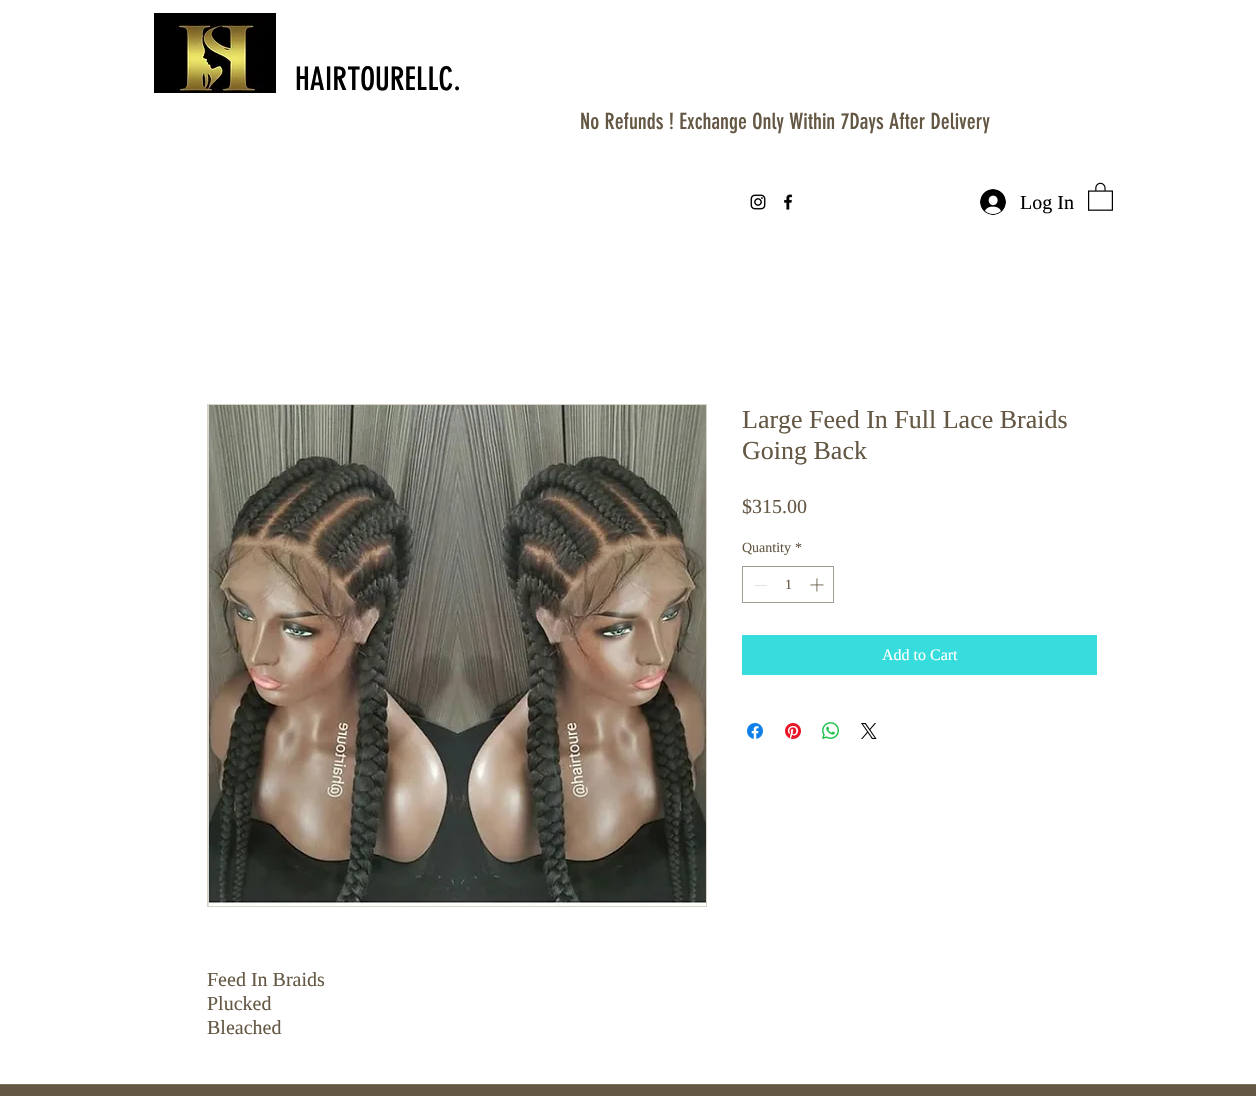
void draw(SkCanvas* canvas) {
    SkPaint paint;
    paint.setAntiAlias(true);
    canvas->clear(0xFFFFFFFF);
    canvas->drawImageRect(SkImages::DeferredFromEncodedData(SkData::MakeFromFileName("img1.png")), SkRect::MakeXYWH(154, 13, 122, 80), SkSamplingOptions());
    SkFont font1(fontMgr->matchFamilyStyle("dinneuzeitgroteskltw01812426", SkFontStyle::Normal()), 32);
    font1.setSubpixel(true);
    paint.setColor(0xFF000000);
    canvas->drawString("HAIRTOURELLC.", 295, 90, font1, paint);
    SkFont font2(fontMgr->matchFamilyStyle("dinneuzeitgroteskltw01812426", SkFontStyle::Normal()), 22);
    font2.setSubpixel(true);
    paint.setColor(0xFF645844);
    canvas->drawString("No Refunds ! Exchange Only Within 7Days After Delivery", 580, 129, font2, paint);
    canvas->drawImageRect(SkImages::DeferredFromEncodedData(SkData::MakeFromFileName("img2.png")), SkRect::MakeXYWH(750, 194, 16, 16), SkSamplingOptions());
    canvas->drawImageRect(SkImages::DeferredFromEncodedData(SkData::MakeFromFileName("img3.png")), SkRect::MakeXYWH(784, 194, 9, 16), SkSamplingOptions());
    canvas->drawImageRect(SkImages::DeferredFromEncodedData(SkData::MakeFromFileName("img4.png")), SkRect::MakeXYWH(980, 189, 26, 26), SkSamplingOptions());
    SkFont font3(fontMgr->matchFamilyStyle("Liberation Serif", SkFontStyle::Normal()), 20);
    font3.setSubpixel(true);
    paint.setColor(0xFF000000);
    canvas->drawString("Log In", 1020, 209, font3, paint);
    canvas->drawImageRect(SkImages::DeferredFromEncodedData(SkData::MakeFromFileName("img5.png")), SkRect::MakeXYWH(1088, 182, 25, 29), SkSamplingOptions());
    SkFont font4(fontMgr->matchFamilyStyle("Liberation Serif", SkFontStyle::Normal()), 26);
    font4.setSubpixel(true);
    paint.setColor(0xFF645844);
    canvas->drawString("Large Feed In Full Lace Braids", 742, 428, font4, paint);
    canvas->drawString("Going Back", 742, 459, font4, paint);
    canvas->drawString("$315.00", 742, 513, font3, paint);
    SkFont font5(fontMgr->matchFamilyStyle("Liberation Serif", SkFontStyle::Normal()), 14);
    font5.setSubpixel(true);
    canvas->drawString("Quantity", 742, 552, font5, paint);
    canvas->drawString("*", 795, 552, font5, paint);
    paint.setStyle(SkPaint::kStroke_Style);
    paint.setStrokeWidth(1);
    paint.setColor(0xFFA29B8F);
    canvas->drawRect(SkRect::MakeXYWH(742.5f, 566.5f, 91, 36), paint);
    paint.setStyle(SkPaint::kFill_Style);
    paint.setColor(0xFFE3E3E3);
    canvas->drawRect(SkRect::MakeXYWH(754, 585, 13, 1), paint);
    paint.setColor(0xFF645844);
    canvas->drawString("1", 785, 589, font5, paint);
    canvas->drawImageRect(SkImages::DeferredFromEncodedData(SkData::MakeFromFileName("img6.png")), SkRect::MakeXYWH(810, 578, 14, 14), SkSamplingOptions());
    paint.setColor(0xFF37DDDD);
    canvas->drawRect(SkRect::MakeXYWH(742, 635, 355, 40), paint);
    SkFont font6(fontMgr->matchFamilyStyle("Liberation Serif", SkFontStyle::Normal()), 16);
    font6.setSubpixel(true);
    paint.setColor(0xFFFFFFFF);
    canvas->drawString("Add to Cart", 882, 660, font6, paint);
    canvas->drawImageRect(SkImages::DeferredFromEncodedData(SkData::MakeFromFileName("img7.png")), SkRect::MakeXYWH(747, 723, 16, 16), SkSamplingOptions());
    canvas->drawImageRect(SkImages::DeferredFromEncodedData(SkData::MakeFromFileName("img8.png")), SkRect::MakeXYWH(785, 723, 16, 16), SkSamplingOptions());
    canvas->drawImageRect(SkImages::DeferredFromEncodedData(SkData::MakeFromFileName("img9.png")), SkRect::MakeXYWH(822, 722, 17, 17), SkSamplingOptions());
    canvas->drawImageRect(SkImages::DeferredFromEncodedData(SkData::MakeFromFileName("img10.png")), SkRect::MakeXYWH(861, 723, 16, 16), SkSamplingOptions());
    paint.setStyle(SkPaint::kStroke_Style);
    paint.setColor(0xFFD8D1C6);
    canvas->drawRect(SkRect::MakeXYWH(207.5f, 404.5f, 499, 502), paint);
    canvas->drawImageRect(SkImages::DeferredFromEncodedData(SkData::MakeFromFileName("img11.png")), SkRect::MakeXYWH(208, 405, 498, 501), SkSamplingOptions());
    paint.setStyle(SkPaint::kFill_Style);
    paint.setColor(0xFF645844);
    canvas->drawString("Feed In Braids", 207, 986, font3, paint);
    canvas->drawString("Plucked", 207, 1010, font3, paint);
    canvas->drawString("Bleached", 207, 1034, font3, paint);
    canvas->drawRect(SkRect::MakeXYWH(0, 1085, 1256, 11), paint);
    paint.setColor(0xFF7B7160);
    canvas->drawRect(SkRect::MakeXYWH(0, 1084, 1256, 1), paint);
}
